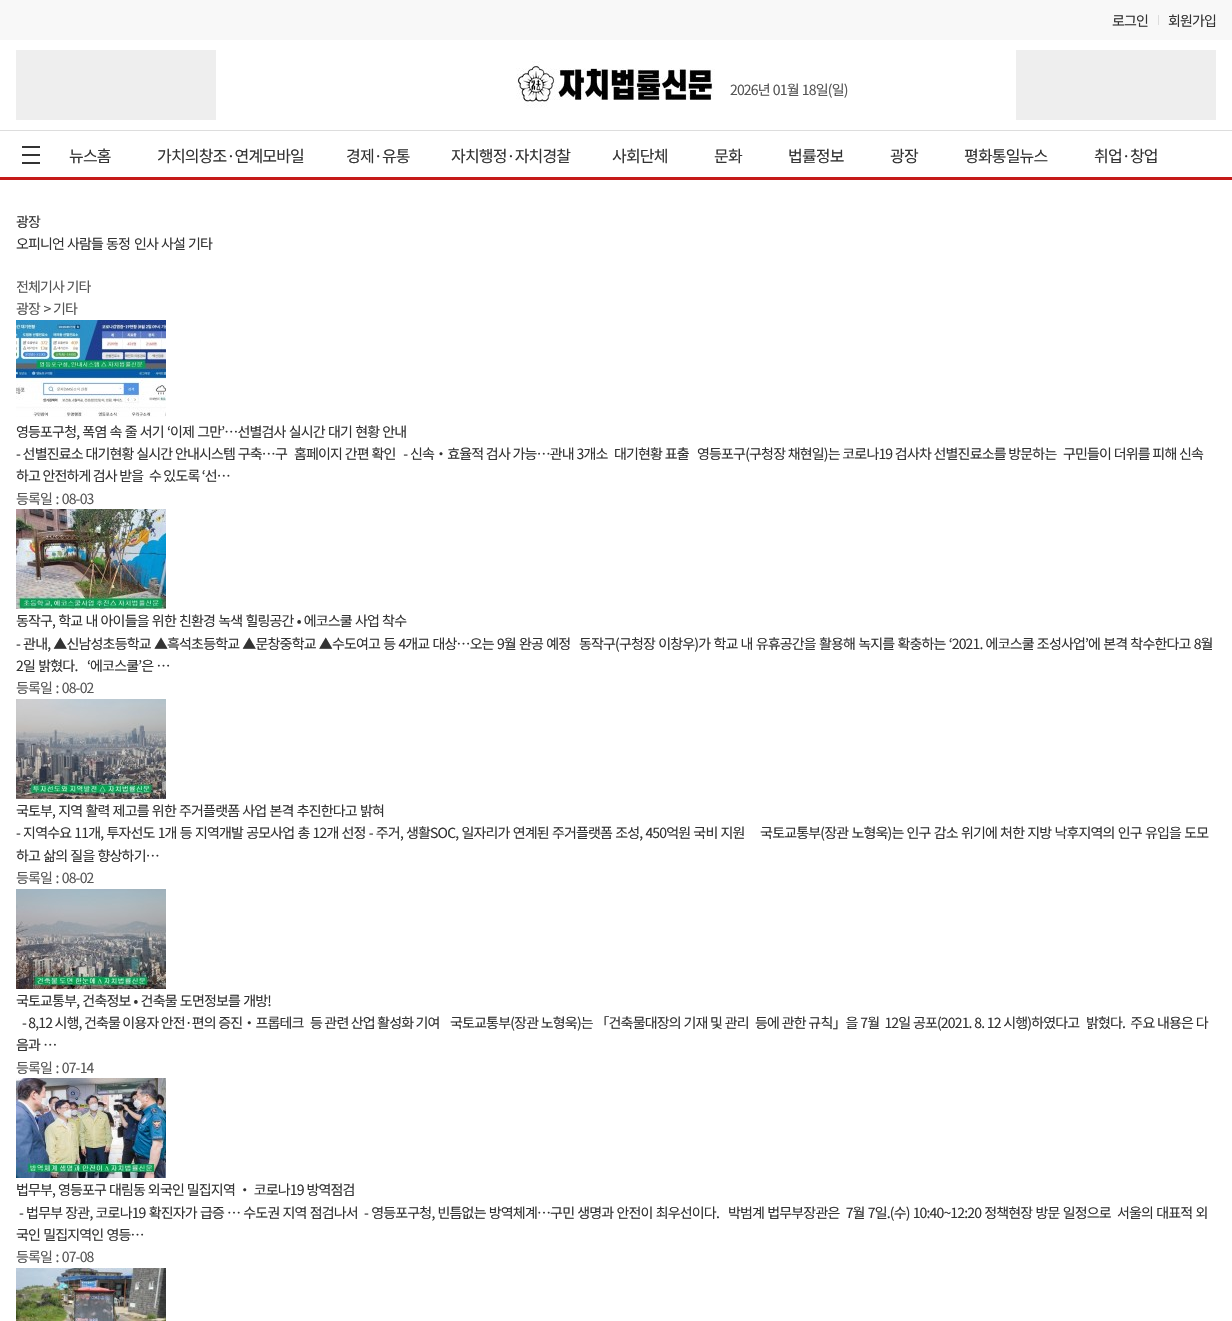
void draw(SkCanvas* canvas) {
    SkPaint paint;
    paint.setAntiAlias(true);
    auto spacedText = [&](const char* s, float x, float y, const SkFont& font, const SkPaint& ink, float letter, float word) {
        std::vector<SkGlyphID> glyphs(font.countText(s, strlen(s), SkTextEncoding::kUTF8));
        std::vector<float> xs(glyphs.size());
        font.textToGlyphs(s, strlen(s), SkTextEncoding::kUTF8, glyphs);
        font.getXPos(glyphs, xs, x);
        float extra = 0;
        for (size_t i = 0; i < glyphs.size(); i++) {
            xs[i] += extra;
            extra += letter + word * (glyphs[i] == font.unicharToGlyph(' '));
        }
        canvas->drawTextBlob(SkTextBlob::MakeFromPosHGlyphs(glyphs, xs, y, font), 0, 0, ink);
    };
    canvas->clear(0xFFFFFFFF);
    paint.setColor(0xFFF8F8F8);
    canvas->drawRect(SkRect::MakeXYWH(0, 0, 1232, 40), paint);
    SkFont font1(fontMgr->matchFamilyStyle("Noto Sans KR", SkFontStyle::Normal()), 14);
    font1.setSubpixel(true);
    paint.setColor(0xFF333333);
    spacedText("로그인", 1112, 26, font1, paint, -0.84f, 0);
    paint.setColor(0xFFDDDDDD);
    canvas->drawRect(SkRect::MakeXYWH(1158, 15, 1, 10), paint);
    paint.setColor(0xFF333333);
    spacedText("회원가입", 1168, 26, font1, paint, -0.84f, 0);
    paint.setColor(0xFFEEEEEE);
    canvas->drawRect(SkRect::MakeXYWH(16, 50, 200, 70), paint);
    canvas->drawImageRect(SkImages::DeferredFromEncodedData(SkData::MakeFromFileName("img1.png")), SkRect::MakeXYWH(516, 61, 199, 47), SkSamplingOptions());
    paint.setColor(0xFF555555);
    spacedText("2026년 01월 18일(일)", 730, 95, font1, paint, -0.84f, 0.8f);
    paint.setColor(0xFFEEEEEE);
    canvas->drawRect(SkRect::MakeXYWH(1016, 50, 200, 70), paint);
    paint.setColor(0xFFDDDDDD);
    canvas->drawRect(SkRect::MakeXYWH(0, 130, 1232, 1), paint);
    paint.setColor(0xFFC51A18);
    canvas->drawRect(SkRect::MakeXYWH(0, 177, 1232, 3), paint);
    paint.setColor(0xFF333333);
    canvas->drawRect(SkRect::MakeXYWH(22, 146, 18, 2), paint);
    canvas->drawRect(SkRect::MakeXYWH(22, 162, 18, 2), paint);
    canvas->drawRect(SkRect::MakeXYWH(22, 154, 18, 2), paint);
    SkFont font2(fontMgr->matchFamilyStyle("Noto Sans KR", SkFontStyle::Normal()), 16);
    font2.setSubpixel(true);
    spacedText("뉴스홈", 69, 162, font2, paint, -0.84f, 0);
    spacedText("가치의창조·연계모바일", 157, 162, font2, paint, -0.84f, 0);
    spacedText("경제·유통", 346, 162, font2, paint, -0.84f, 0);
    spacedText("자치행정·자치경찰", 451, 162, font2, paint, -0.84f, 0);
    spacedText("사회단체", 612, 162, font2, paint, -0.84f, 0);
    spacedText("문화", 714, 162, font2, paint, -0.84f, 0);
    spacedText("법률정보", 788, 162, font2, paint, -0.84f, 0);
    spacedText("광장", 890, 162, font2, paint, -0.84f, 0);
    spacedText("평화통일뉴스", 964, 162, font2, paint, -0.84f, 0);
    spacedText("취업·창업", 1094, 162, font2, paint, -0.84f, 0);
    spacedText("광장", 16, 227, font1, paint, -0.84f, 0);
    spacedText("오피니언", 16, 249, font1, paint, -0.84f, 0);
    spacedText("사람들", 67, 249, font1, paint, -0.84f, 0);
    spacedText("동정", 106, 249, font1, paint, -0.84f, 0);
    spacedText("인사", 134, 249, font1, paint, -0.84f, 0);
    spacedText("사설", 161, 249, font1, paint, -0.84f, 0);
    spacedText("기타", 188, 249, font1, paint, -0.84f, 0);
    paint.setColor(0xFF555555);
    spacedText("전체기사 기타", 16, 292, font1, paint, -0.84f, 0);
    spacedText("광장 >", 16, 314, font1, paint, -0.84f, 1);
    spacedText("기타", 53, 314, font1, paint, -0.84f, 0);
    canvas->drawImageRect(SkImages::DeferredFromEncodedData(SkData::MakeFromFileName("img2.png")), SkRect::MakeXYWH(16, 320, 150, 97), SkSamplingOptions());
    paint.setColor(0xFF333333);
    spacedText("영등포구청, 폭염 속 줄 서기 ‘이제 그만’…선별검사 실시간 대기 현황 안내", 16, 437, font1, paint, -0.84f, 0.8f);
    SkFont font3(fontMgr->matchFamilyStyle("Noto Sans CJK KR", SkFontStyle::Normal()), 14);
    font3.setSubpixel(true);
    spacedText("- 선별진료소 대기현황 실시간 안내시스템 구축…구", 16, 459, font3, paint, -0.84f, 0.3f);
    spacedText("홈페이지 간편 확인   - 신속‧효율적 검사 가능…관내 3개소", 294, 459, font3, paint, -0.84f, 0.3f);
    spacedText("대기현황 표출", 614, 459, font3, paint, -0.84f, 0.3f);
    spacedText("영등포구(구청장 채현일)는 코로나19 검사차 선별진료소를 방문하는", 697, 459, font3, paint, -0.84f, 0.25f);
    spacedText("구민들이 더위를 피해 신속", 1063, 459, font3, paint, -0.84f, 0.25f);
    spacedText("하고 안전하게 검사 받을", 16, 481, font3, paint, -0.84f, 0);
    spacedText("수 있도록 ‘선…", 149, 481, font3, paint, -0.84f, 0);
    paint.setColor(0xFF555555);
    spacedText("등록일 : 08-03", 16, 504, font1, paint, -0.84f, 1);
    canvas->drawImageRect(SkImages::DeferredFromEncodedData(SkData::MakeFromFileName("img3.png")), SkRect::MakeXYWH(16, 509, 150, 100), SkSamplingOptions());
    paint.setColor(0xFF333333);
    spacedText("동작구, 학교 내 아이들을 위한 친환경 녹색 힐링공간 • 에코스쿨 사업 착수", 16, 626, font1, paint, -0.84f, 0.8f);
    spacedText("- 관내, ▲신남성초등학교 ▲흑석초등학교 ▲문창중학교 ▲수도여고 등 4개교 대상…오는 9월 완공 예정", 16, 649, font1, paint, -0.84f, 0.8f);
    spacedText("동작구(구청장 이창우)가 학교 내 유휴공간을 활용해 녹지를 확충하는 ‘2021. 에코스쿨 조성사업’에 본격 착수한다고 8월", 579, 649, font1, paint, -0.84f, 0.8f);
    spacedText("2일 밝혔다.", 16, 671, font1, paint, -0.84f, 1);
    spacedText("‘에코스쿨’은 …", 87, 671, font1, paint, -0.84f, 1);
    paint.setColor(0xFF555555);
    spacedText("등록일 : 08-02", 16, 693, font1, paint, -0.84f, 1);
    canvas->drawImageRect(SkImages::DeferredFromEncodedData(SkData::MakeFromFileName("img4.png")), SkRect::MakeXYWH(16, 699, 150, 100), SkSamplingOptions());
    paint.setColor(0xFF333333);
    spacedText("국토부, 지역 활력 제고를 위한 주거플랫폼 사업 본격 추진한다고 밝혀", 16, 816, font1, paint, -0.84f, 0.8f);
    spacedText("- 지역수요 11개, 투자선도 1개 등 지역개발 공모사업 총 12개 선정 - 주거, 생활SOC, 일자리가 연계된 주거플랫폼 조성, 450억원 국비 지원     국토교통부(장관 노형욱)는 인구 감소 위기에 처한 지방 낙후지역의 인구 유입을 도모", 16, 838, font1, paint, -0.84f, 0.8f);
    spacedText("하고 삶의 질을 향상하기…", 16, 861, font1, paint, -0.84f, 0.8f);
    paint.setColor(0xFF555555);
    spacedText("등록일 : 08-02", 16, 883, font1, paint, -0.84f, 1);
    canvas->drawImageRect(SkImages::DeferredFromEncodedData(SkData::MakeFromFileName("img5.png")), SkRect::MakeXYWH(16, 889, 150, 100), SkSamplingOptions());
    paint.setColor(0xFF333333);
    spacedText("국토교통부, 건축정보 • 건축물 도면정보를 개방!", 16, 1006, font1, paint, -0.84f, 0.8f);
    spacedText("- 8,12 시행, 건축물 이용자 안전·편의 증진‧프롭테크", 22, 1028, font3, paint, -0.84f, 0);
    spacedText("등 관련 산업 활성화 기여", 310, 1028, font3, paint, -0.84f, 0);
    spacedText("국토교통부(장관 노형욱)는 「건축물대장의 기재 및 관리", 450, 1028, font3, paint, -0.84f, 0.3f);
    spacedText("등에 관한 규칙」을 7월  12일 공포(2021. 8. 12 시행)하였다고", 755, 1028, font3, paint, -0.84f, 0.3f);
    spacedText("밝혔다.  주요 내용은 다", 1086, 1028, font3, paint, -0.84f, 0.3f);
    spacedText("음과 …", 16, 1050, font3, paint, -0.84f, 0.8f);
    paint.setColor(0xFF555555);
    spacedText("등록일 : 07-14", 16, 1073, font1, paint, -0.84f, 1);
    canvas->drawImageRect(SkImages::DeferredFromEncodedData(SkData::MakeFromFileName("img6.png")), SkRect::MakeXYWH(16, 1078, 150, 100), SkSamplingOptions());
    paint.setColor(0xFF333333);
    spacedText("법무부, 영등포구 대림동 외국인 밀집지역 ‧ 코로나19 방역점검", 16, 1195, font3, paint, -0.84f, 0.5f);
    spacedText("- 법무부 장관, 코로나19 확진자가 급증 … 수도권 지역 점검나서  - 영등포구청, 빈틈없는 방역체계…구민 생명과 안전이 최우선이다.", 19, 1218, font1, paint, -0.84f, 0.8f);
    spacedText("박범계 법무부장관은  7월 7일.(수) 10:40~12:20 정책현장 방문 일정으로  서울의 대표적 외", 728, 1218, font1, paint, -0.84f, 0.8f);
    spacedText("국인 밀집지역인 영등…", 16, 1240, font1, paint, -0.84f, 0.8f);
    paint.setColor(0xFF555555);
    spacedText("등록일 : 07-08", 16, 1262, font1, paint, -0.84f, 1);
    canvas->drawImageRect(SkImages::DeferredFromEncodedData(SkData::MakeFromFileName("img7.png")), SkRect::MakeXYWH(16, 1268, 150, 53), SkSamplingOptions());
}
